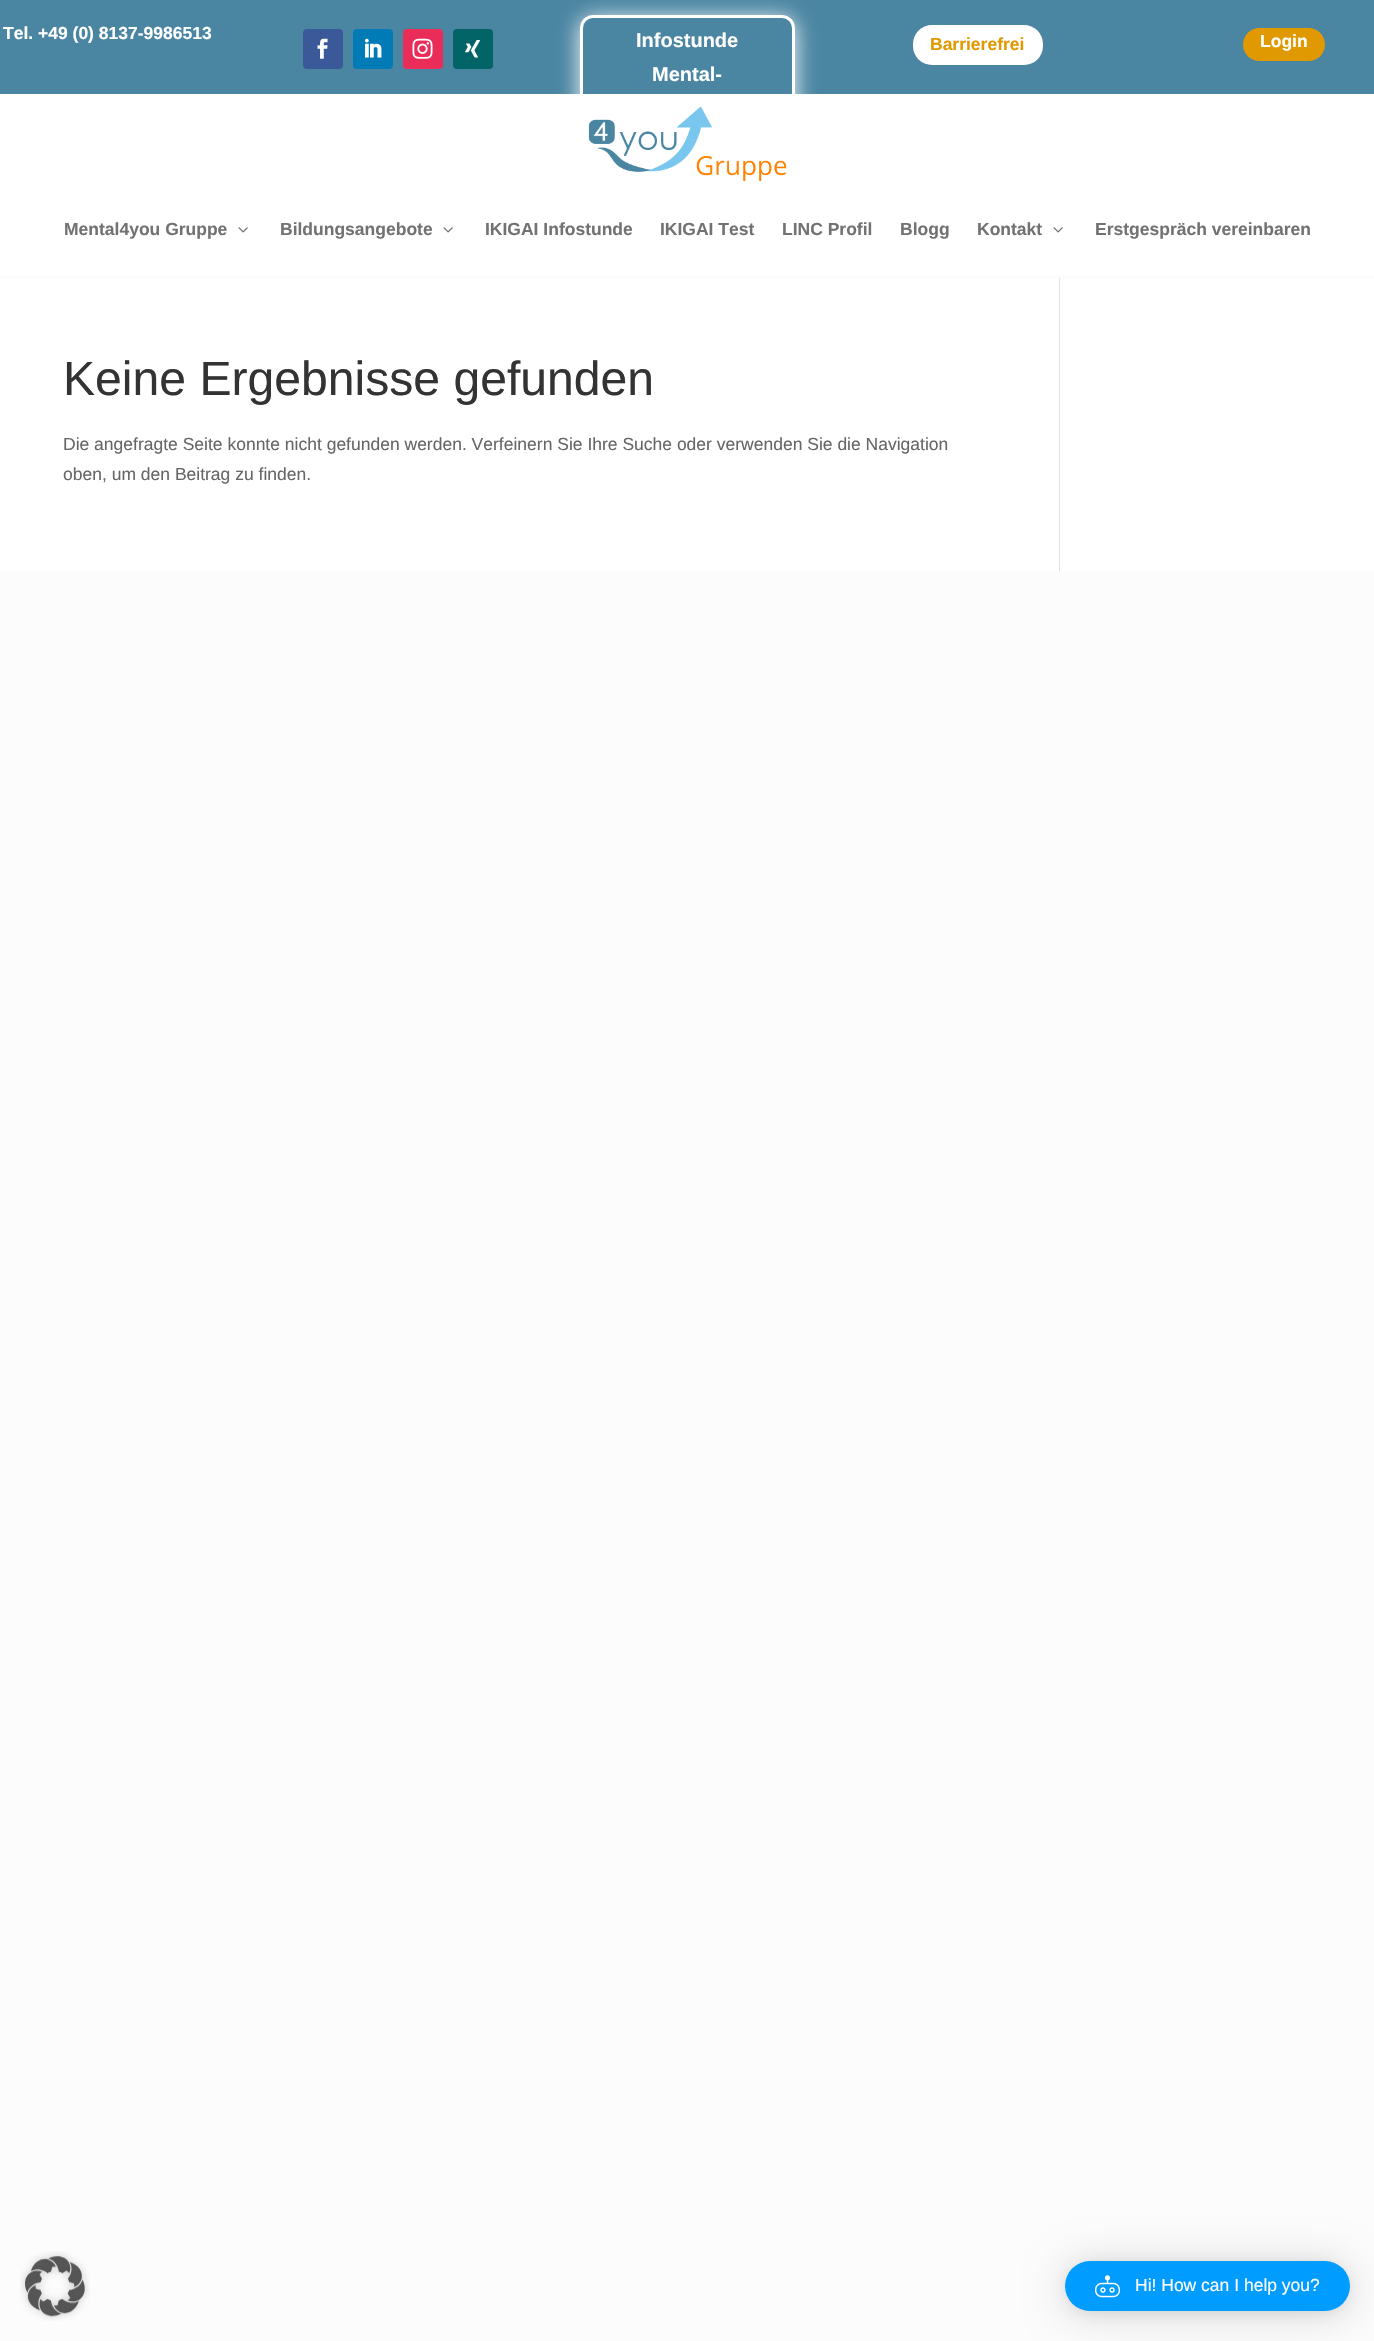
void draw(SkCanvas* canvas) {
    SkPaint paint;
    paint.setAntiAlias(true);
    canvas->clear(0xFFFCFCFC);
    paint.setColor(0xFF4A85A2);
    canvas->drawRect(SkRect::MakeXYWH(0, 0, 1374, 94), paint);
    SkFont font1(fontMgr->matchFamilyStyle("Liberation Sans", SkFontStyle::Bold()), 17.5f);
    font1.setSubpixel(true);
    paint.setColor(0xFFFFFFFF);
    canvas->drawString("Tel. +49 (0) 8137-9986513", 3, 39, font1, paint);
    paint.setColor(0xFF3B5998);
    canvas->drawRoundRect(SkRect::MakeXYWH(303, 29, 40, 40), 4, 4, paint);
    canvas->drawImageRect(SkImages::DeferredFromEncodedData(SkData::MakeFromFileName("img1.png")), SkRect::MakeXYWH(317, 38, 11, 21), SkSamplingOptions());
    paint.setColor(0xFF007BB6);
    canvas->drawRoundRect(SkRect::MakeXYWH(353, 29, 40, 40), 4, 4, paint);
    canvas->drawImageRect(SkImages::DeferredFromEncodedData(SkData::MakeFromFileName("img2.png")), SkRect::MakeXYWH(365, 38, 17, 20), SkSamplingOptions());
    paint.setColor(0xFFEA2C59);
    canvas->drawRoundRect(SkRect::MakeXYWH(403, 29, 40, 40), 4, 4, paint);
    canvas->drawImageRect(SkImages::DeferredFromEncodedData(SkData::MakeFromFileName("img3.png")), SkRect::MakeXYWH(412, 38, 21, 21), SkSamplingOptions());
    paint.setColor(0xFF026466);
    canvas->drawRoundRect(SkRect::MakeXYWH(453, 29, 40, 40), 4, 4, paint);
    canvas->drawImageRect(SkImages::DeferredFromEncodedData(SkData::MakeFromFileName("img4.png")), SkRect::MakeXYWH(465, 40, 15, 18), SkSamplingOptions());
    canvas->save();
    canvas->clipPath(SkPathBuilder(SkPathFillType::kEvenOdd).moveTo(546, 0).lineTo(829, 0).lineTo(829, 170).lineTo(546, 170).close().moveTo(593, 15).lineTo(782, 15).cubicTo(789, 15, 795, 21, 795, 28).lineTo(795, 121).cubicTo(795, 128, 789, 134, 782, 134).lineTo(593, 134).cubicTo(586, 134, 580, 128, 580, 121).lineTo(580, 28).cubicTo(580, 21, 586, 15, 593, 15).close().detach(), true);
    paint.setColor(0xFFFFFFFF);
    paint.setMaskFilter(SkMaskFilter::MakeBlur(kNormal_SkBlurStyle, 11));
    canvas->drawRoundRect(SkRect::MakeXYWH(580, 18, 215, 118), 13, 13, paint);
    paint.setMaskFilter(nullptr);
    canvas->restore();
    paint.setStyle(SkPaint::kStroke_Style);
    paint.setStrokeWidth(3);
    canvas->drawRoundRect(SkRect::MakeXYWH(581.5f, 16.5f, 212, 116), 11.5f, 11.5f, paint);
    SkFont font2(fontMgr->matchFamilyStyle("Liberation Sans", SkFontStyle::Bold()), 20);
    font2.setSubpixel(true);
    paint.setStyle(SkPaint::kFill_Style);
    canvas->drawString("Infostunde", 636, 47, font2, paint);
    canvas->drawString("Mental-", 652, 81, font2, paint);
    canvas->drawRoundRect(SkRect::MakeXYWH(913, 25, 130, 40), 19, 19, paint);
    paint.setColor(0xFFE09900);
    canvas->drawString("Barrierefrei", 930, 50, font1, paint);
    canvas->drawRoundRect(SkRect::MakeXYWH(1243, 28, 82, 33), 16.5f, 16.5f, paint);
    paint.setColor(0xFFFFFFFF);
    canvas->drawString("Login", 1260, 47, font1, paint);
    canvas->drawRect(SkRect::MakeXYWH(0, 94, 1374, 182), paint);
    canvas->drawImageRect(SkImages::DeferredFromEncodedData(SkData::MakeFromFileName("img5.png")), SkRect::MakeXYWH(588, 106, 199, 76), SkSamplingOptions());
    paint.setColor(0xFF727272);
    canvas->drawString("Mental4you Gruppe", 64, 235, font1, paint);
    canvas->drawImageRect(SkImages::DeferredFromEncodedData(SkData::MakeFromFileName("img6.png")), SkRect::MakeXYWH(238, 227, 10, 6), SkSamplingOptions());
    canvas->drawString("Bildungsangebote", 280, 235, font1, paint);
    canvas->drawImageRect(SkImages::DeferredFromEncodedData(SkData::MakeFromFileName("img6.png")), SkRect::MakeXYWH(443, 227, 10, 6), SkSamplingOptions());
    canvas->drawString("IKIGAI Infostunde", 485, 235, font1, paint);
    canvas->drawString("IKIGAI Test", 660, 235, font1, paint);
    canvas->drawString("LINC Profil", 782, 235, font1, paint);
    canvas->drawString("Blogg", 900, 235, font1, paint);
    canvas->drawString("Kontakt", 977, 235, font1, paint);
    canvas->drawImageRect(SkImages::DeferredFromEncodedData(SkData::MakeFromFileName("img6.png")), SkRect::MakeXYWH(1053, 227, 10, 6), SkSamplingOptions());
    canvas->drawString("Erstgespräch vereinbaren", 1095, 235, font1, paint);
    paint.setColor(0xFFFFFFFF);
    canvas->drawRect(SkRect::MakeXYWH(0, 278, 1374, 293), paint);
    SkFont font3(fontMgr->matchFamilyStyle("Liberation Sans", SkFontStyle::Normal()), 48.1f);
    font3.setSubpixel(true);
    paint.setColor(0xFF333333);
    canvas->drawString("Keine Ergebnisse gefunden", 63, 395, font3, paint);
    SkFont font4(fontMgr->matchFamilyStyle("Liberation Sans", SkFontStyle::Normal()), 17.5f);
    font4.setSubpixel(true);
    paint.setColor(0xFF666666);
    canvas->drawString("Die angefragte Seite konnte nicht gefunden werden. Verfeinern Sie Ihre Suche oder verwenden Sie die Navigation", 63, 450, font4, paint);
    canvas->drawString("oben, um den Beitrag zu finden.", 63, 480, font4, paint);
    paint.setColor(0xFFE2E2E2);
    canvas->drawRect(SkRect::MakeXYWH(1059, 278, 1, 293), paint);
    canvas->drawImageRect(SkImages::DeferredFromEncodedData(SkData::MakeFromFileName("img7.png")), SkRect::MakeXYWH(20, 2251, 70, 70), SkSamplingOptions());
    paint.setColor(0x29000000);
    paint.setMaskFilter(SkMaskFilter::MakeBlur(kNormal_SkBlurStyle, 20));
    canvas->drawRoundRect(SkRect::MakeXYWH(1065, 2264, 285, 50), 25, 25, paint);
    paint.setMaskFilter(nullptr);
    paint.setColor(0x0F000000);
    paint.setMaskFilter(SkMaskFilter::MakeBlur(kNormal_SkBlurStyle, 4));
    canvas->drawRoundRect(SkRect::MakeXYWH(1065, 2263, 285, 50), 25, 25, paint);
    paint.setMaskFilter(nullptr);
    paint.setColor(0xFF009CFF);
    canvas->drawRoundRect(SkRect::MakeXYWH(1065, 2261, 285, 50), 25, 25, paint);
    canvas->drawImageRect(SkImages::DeferredFromEncodedData(SkData::MakeFromFileName("img8.png")), SkRect::MakeXYWH(1095, 2275, 25, 23), SkSamplingOptions());
    paint.setColor(0xFFFFFFFF);
    canvas->drawString("Hi! How can I help you?", 1135, 2291, font4, paint);
}
